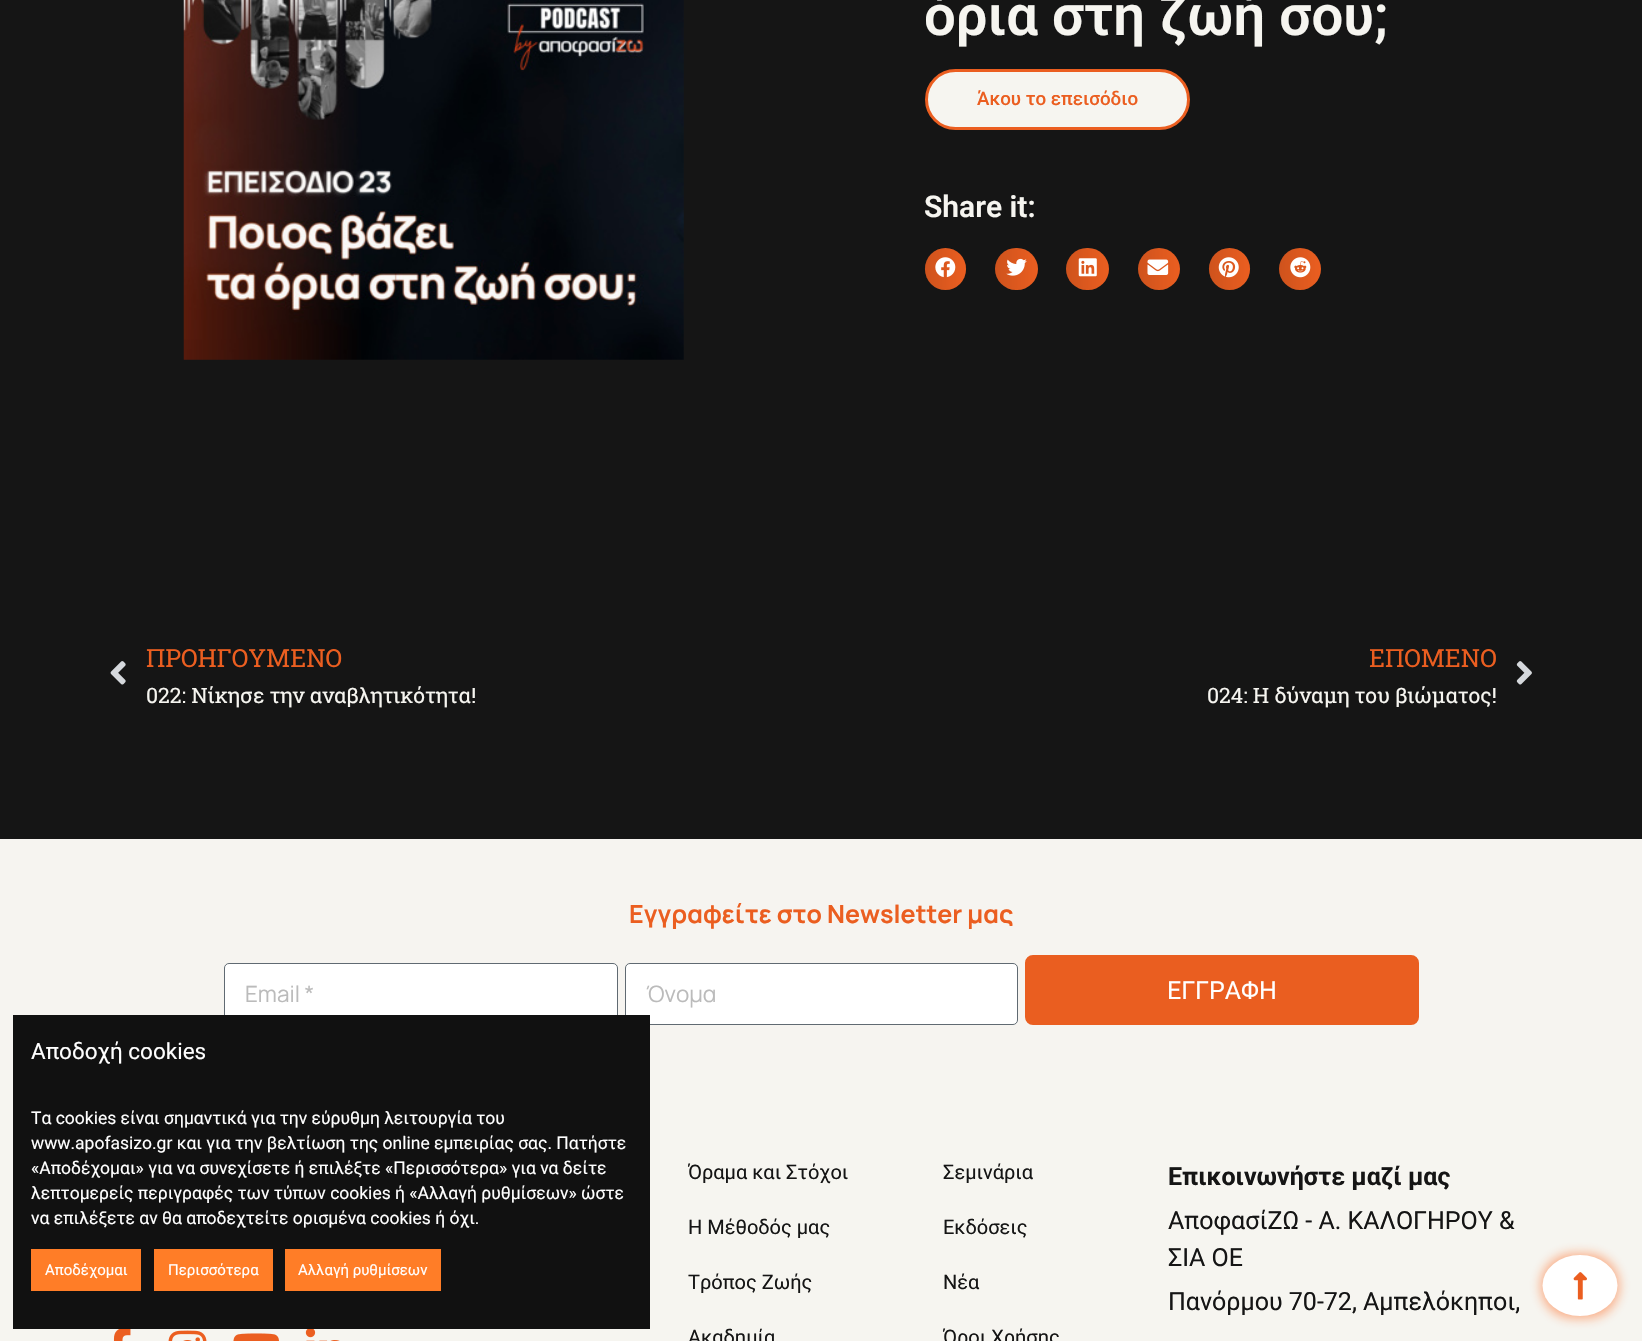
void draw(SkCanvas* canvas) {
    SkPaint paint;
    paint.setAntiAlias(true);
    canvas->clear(0xFF151515);
    canvas->drawImageRect(SkImages::DeferredFromEncodedData(SkData::MakeFromFileName("img1.png")), SkRect::MakeXYWH(183, 0, 501, 360), SkSamplingOptions());
    SkFont font1(fontMgr->matchFamilyStyle("Roboto", SkFontStyle(600, SkFontStyle::kNormal_Width, SkFontStyle::kUpright_Slant)), 56.25f);
    font1.setSubpixel(true);
    paint.setColor(0xFFF6F5F0);
    canvas->drawString("όρια στη ζωή σου;", 924, 35, font1, paint);
    canvas->drawRoundRect(SkRect::MakeXYWH(926.5f, 70.5f, 262, 58), 29, 29, paint);
    paint.setStyle(SkPaint::kStroke_Style);
    paint.setStrokeWidth(3);
    paint.setColor(0xFFEB5E20);
    canvas->drawRoundRect(SkRect::MakeXYWH(926.5f, 70.5f, 262, 58), 29, 29, paint);
    SkFont font2(fontMgr->matchFamilyStyle("Roboto", SkFontStyle(500, SkFontStyle::kNormal_Width, SkFontStyle::kUpright_Slant)), 18.75f);
    font2.setSubpixel(true);
    paint.setStyle(SkPaint::kFill_Style);
    canvas->drawString("Άκου το επεισόδιο", 977, 105, font2, paint);
    SkFont font3(fontMgr->matchFamilyStyle("Roboto", SkFontStyle(600, SkFontStyle::kNormal_Width, SkFontStyle::kUpright_Slant)), 30);
    font3.setSubpixel(true);
    paint.setColor(0xFFF6F5F0);
    canvas->drawString("Share it:", 924, 217, font3, paint);
    paint.setColor(0xFFEB5E20);
    canvas->drawRoundRect(SkRect::MakeXYWH(925, 248, 41, 42), 20.5f, 20.5f, paint);
    {
        const SkColor colors[] = {0x1F000000, 0x00000000};
        const float stops[] = {0, 1};
        const SkPoint ends[] = {{925, 269}, {966, 269}};
        paint.setShader(SkGradientShader::MakeLinear(ends, colors, stops, 2, SkTileMode::kClamp));
        paint.setAlpha(255);
    }
    canvas->drawRoundRect(SkRect::MakeXYWH(925, 248, 41, 42), 20.5f, 20.5f, paint);
    canvas->drawImageRect(SkImages::DeferredFromEncodedData(SkData::MakeFromFileName("img2.png")), SkRect::MakeXYWH(935, 257, 21, 21), SkSamplingOptions());
    paint.setShader(nullptr);
    paint.setColor(0xFFEB5E20);
    canvas->drawRoundRect(SkRect::MakeXYWH(995, 248, 43, 42), 21, 21, paint);
    {
        const SkColor colors[] = {0x1F000000, 0x00000000};
        const float stops[] = {0, 1};
        const SkPoint ends[] = {{995, 269}, {1038, 269}};
        paint.setShader(SkGradientShader::MakeLinear(ends, colors, stops, 2, SkTileMode::kClamp));
        paint.setAlpha(255);
    }
    canvas->drawRoundRect(SkRect::MakeXYWH(995, 248, 43, 42), 21, 21, paint);
    canvas->drawImageRect(SkImages::DeferredFromEncodedData(SkData::MakeFromFileName("img3.png")), SkRect::MakeXYWH(1006, 258, 21, 18), SkSamplingOptions());
    paint.setShader(nullptr);
    paint.setColor(0xFFEB5E20);
    canvas->drawRoundRect(SkRect::MakeXYWH(1066, 248, 43, 42), 21, 21, paint);
    {
        const SkColor colors[] = {0x1F000000, 0x00000000};
        const float stops[] = {0, 1};
        const SkPoint ends[] = {{1066, 269}, {1109, 269}};
        paint.setShader(SkGradientShader::MakeLinear(ends, colors, stops, 2, SkTileMode::kClamp));
        paint.setAlpha(255);
    }
    canvas->drawRoundRect(SkRect::MakeXYWH(1066, 248, 43, 42), 21, 21, paint);
    canvas->drawImageRect(SkImages::DeferredFromEncodedData(SkData::MakeFromFileName("img4.png")), SkRect::MakeXYWH(1078, 258, 19, 19), SkSamplingOptions());
    paint.setShader(nullptr);
    paint.setColor(0xFFEB5E20);
    canvas->drawCircle(1159, 269, 21, paint);
    {
        const SkColor colors[] = {0x1F000000, 0x00000000};
        const float stops[] = {0, 1};
        const SkPoint ends[] = {{1138, 269}, {1180, 269}};
        paint.setShader(SkGradientShader::MakeLinear(ends, colors, stops, 2, SkTileMode::kClamp));
        paint.setAlpha(255);
    }
    canvas->drawCircle(1159, 269, 21, paint);
    canvas->drawImageRect(SkImages::DeferredFromEncodedData(SkData::MakeFromFileName("img5.png")), SkRect::MakeXYWH(1147, 259, 22, 16), SkSamplingOptions());
    paint.setShader(nullptr);
    paint.setColor(0xFFEB5E20);
    canvas->drawRoundRect(SkRect::MakeXYWH(1209, 248, 41, 42), 20.5f, 20.5f, paint);
    {
        const SkColor colors[] = {0x1F000000, 0x00000000};
        const float stops[] = {0, 1};
        const SkPoint ends[] = {{1209, 269}, {1250, 269}};
        paint.setShader(SkGradientShader::MakeLinear(ends, colors, stops, 2, SkTileMode::kClamp));
        paint.setAlpha(255);
    }
    canvas->drawRoundRect(SkRect::MakeXYWH(1209, 248, 41, 42), 20.5f, 20.5f, paint);
    canvas->drawImageRect(SkImages::DeferredFromEncodedData(SkData::MakeFromFileName("img6.png")), SkRect::MakeXYWH(1218, 257, 21, 21), SkSamplingOptions());
    paint.setShader(nullptr);
    paint.setColor(0xFFEB5E20);
    canvas->drawCircle(1300, 269, 21, paint);
    {
        const SkColor colors[] = {0x1F000000, 0x00000000};
        const float stops[] = {0, 1};
        const SkPoint ends[] = {{1279, 269}, {1321, 269}};
        paint.setShader(SkGradientShader::MakeLinear(ends, colors, stops, 2, SkTileMode::kClamp));
        paint.setAlpha(255);
    }
    canvas->drawCircle(1300, 269, 21, paint);
    canvas->drawImageRect(SkImages::DeferredFromEncodedData(SkData::MakeFromFileName("img7.png")), SkRect::MakeXYWH(1290, 257, 21, 21), SkSamplingOptions());
    canvas->drawImageRect(SkImages::DeferredFromEncodedData(SkData::MakeFromFileName("img8.png")), SkRect::MakeXYWH(110, 661, 16, 24), SkSamplingOptions());
    SkFont font4(fontMgr->matchFamilyStyle("Roboto Slab", SkFontStyle::Normal()), 25);
    font4.setSubpixel(true);
    paint.setShader(nullptr);
    paint.setColor(0xFFEB5E20);
    canvas->drawString("ΠΡΟΗΓΟΥΜΕΝΟ", 146, 667, font4, paint);
    SkFont font5(fontMgr->matchFamilyStyle("Roboto Slab", SkFontStyle::Normal()), 21.25f);
    font5.setSubpixel(true);
    paint.setColor(0xFFF6F5F0);
    canvas->drawString("022: Νίκησε την αναβλητικότητα!", 146, 703, font5, paint);
    paint.setColor(0xFFEB5E20);
    canvas->drawString("ΕΠΟΜΕΝΟ", 1369, 667, font4, paint);
    paint.setColor(0xFFF6F5F0);
    canvas->drawString("024: Η δύναμη του βιώματος!", 1207, 703, font5, paint);
    canvas->drawImageRect(SkImages::DeferredFromEncodedData(SkData::MakeFromFileName("img9.png")), SkRect::MakeXYWH(1516, 661, 16, 24), SkSamplingOptions());
    paint.setColor(0xFFF6F4F0);
    canvas->drawRect(SkRect::MakeXYWH(0, 839, 1642, 231), paint);
    SkFont font6(fontMgr->matchFamilyStyle("Manrope", SkFontStyle::Bold()), 25);
    font6.setSubpixel(true);
    paint.setColor(0xFFEB5E20);
    canvas->drawString("Εγγραφείτε στο Newsletter μας", 629, 923, font6, paint);
    paint.setColor(0xFFFFFFFF);
    canvas->drawRoundRect(SkRect::MakeXYWH(224.5f, 963.5f, 393, 61), 4.5f, 4.5f, paint);
    paint.setStyle(SkPaint::kStroke_Style);
    paint.setStrokeWidth(1);
    paint.setColor(0xFF606A72);
    canvas->drawRoundRect(SkRect::MakeXYWH(224.5f, 963.5f, 393, 61), 4.5f, 4.5f, paint);
    SkFont font7(fontMgr->matchFamilyStyle("Manrope", SkFontStyle(200, SkFontStyle::kNormal_Width, SkFontStyle::kUpright_Slant)), 22.5f);
    font7.setSubpixel(true);
    paint.setStyle(SkPaint::kFill_Style);
    paint.setColor(0xFFBBBBBB);
    canvas->drawString("Email *", 245, 1002, font7, paint);
    paint.setColor(0xFFFFFFFF);
    canvas->drawRoundRect(SkRect::MakeXYWH(625.5f, 963.5f, 392, 61), 4.5f, 4.5f, paint);
    paint.setStyle(SkPaint::kStroke_Style);
    paint.setColor(0xFF606A72);
    canvas->drawRoundRect(SkRect::MakeXYWH(625.5f, 963.5f, 392, 61), 4.5f, 4.5f, paint);
    paint.setStyle(SkPaint::kFill_Style);
    paint.setColor(0xFFBBBBBB);
    canvas->drawString("Όνομα", 646, 1002, font7, paint);
    paint.setColor(0xFFEA5E20);
    canvas->drawRoundRect(SkRect::MakeXYWH(1026.5f, 956.5f, 391, 67), 6.5f, 6.5f, paint);
    paint.setStyle(SkPaint::kStroke_Style);
    paint.setStrokeWidth(3);
    canvas->drawRoundRect(SkRect::MakeXYWH(1026.5f, 956.5f, 391, 67), 6.5f, 6.5f, paint);
    SkFont font8(fontMgr->matchFamilyStyle("Roboto", SkFontStyle::Normal()), 25);
    font8.setSubpixel(true);
    paint.setStyle(SkPaint::kFill_Style);
    paint.setColor(0xFFFFFFFF);
    canvas->drawString("ΕΓΓΡΑΦΗ", 1167, 999, font8, paint);
    paint.setColor(0xFFF6F5F0);
    canvas->drawRect(SkRect::MakeXYWH(0, 1070, 1642, 271), paint);
    SkFont font9(fontMgr->matchFamilyStyle("Roboto", SkFontStyle::Normal()), 20);
    font9.setSubpixel(true);
    paint.setColor(0xFF151515);
    canvas->drawString("Όραμα και Στόχοι", 688, 1179, font9, paint);
    canvas->drawString("Η Μέθοδός μας", 688, 1234, font9, paint);
    canvas->drawString("Τρόπος Ζωής", 688, 1289, font9, paint);
    canvas->drawString("Ακαδημία", 688, 1344, font9, paint);
    canvas->drawString("Σεμινάρια", 943, 1179, font9, paint);
    canvas->drawString("Εκδόσεις", 943, 1234, font9, paint);
    canvas->drawString("Νέα", 943, 1289, font9, paint);
    canvas->drawString("Όροι Χρήσης", 943, 1344, font9, paint);
    SkFont font10(fontMgr->matchFamilyStyle("Roboto", SkFontStyle::Bold()), 25);
    font10.setSubpixel(true);
    canvas->drawString("Επικοινωνήστε μαζί μας", 1168, 1185, font10, paint);
    canvas->drawString("ΑποφασίΖΩ - Α. ΚΑΛΟΓΗΡΟΥ &", 1168, 1229, font8, paint);
    canvas->drawString("ΣΙΑ ΟΕ", 1168, 1266, font8, paint);
    canvas->drawString("Πανόρμου 70-72, Αμπελόκηποι,", 1168, 1310, font8, paint);
    canvas->drawImageRect(SkImages::DeferredFromEncodedData(SkData::MakeFromFileName("img10.png")), SkRect::MakeXYWH(113, 1329, 18, 12), SkSamplingOptions());
    canvas->drawImageRect(SkImages::DeferredFromEncodedData(SkData::MakeFromFileName("img11.png")), SkRect::MakeXYWH(168, 1330, 39, 11), SkSamplingOptions());
    canvas->drawImageRect(SkImages::DeferredFromEncodedData(SkData::MakeFromFileName("img12.png")), SkRect::MakeXYWH(233, 1333, 46, 8), SkSamplingOptions());
    canvas->drawImageRect(SkImages::DeferredFromEncodedData(SkData::MakeFromFileName("img13.png")), SkRect::MakeXYWH(305, 1329, 35, 12), SkSamplingOptions());
    paint.setColor(0x80FF5505);
    paint.setMaskFilter(SkMaskFilter::MakeBlur(kNormal_SkBlurStyle, 6));
    canvas->drawRoundRect(SkRect::MakeXYWH(1541, 1254, 78, 64), 32, 32, paint);
    paint.setMaskFilter(nullptr);
    paint.setColor(0xFFFFFFFF);
    canvas->drawOval(SkRect::MakeXYWH(1542.5f, 1255, 75, 61), paint);
    canvas->drawImageRect(SkImages::DeferredFromEncodedData(SkData::MakeFromFileName("img14.png")), SkRect::MakeXYWH(1573, 1272, 14, 28), SkSamplingOptions());
    paint.setColor(0xFF111111);
    canvas->drawRect(SkRect::MakeXYWH(13, 1015, 637, 314), paint);
    SkFont font11(fontMgr->matchFamilyStyle("Roboto", SkFontStyle::Normal()), 22.5f);
    font11.setSubpixel(true);
    paint.setColor(0xFFFFFFFF);
    canvas->drawString("Αποδοχή cookies", 31, 1059, font11, paint);
    SkFont font12(fontMgr->matchFamilyStyle("Roboto", SkFontStyle::Normal()), 17.5f);
    font12.setSubpixel(true);
    canvas->drawString("Τα cookies είναι σημαντικά για την εύρυθμη λειτουργία του", 31, 1124, font12, paint);
    canvas->drawString("www.apofasizo.gr και για την βελτίωση της online εμπειρίας σας. Πατήστε", 31, 1149, font12, paint);
    canvas->drawString("«Αποδέχομαι» για να συνεχίσετε ή επιλέξτε «Περισσότερα» για να δείτε", 31, 1174, font12, paint);
    canvas->drawString("λεπτομερείς περιγραφές των τύπων cookies ή «Αλλαγή ρυθμίσεων» ώστε", 31, 1199, font12, paint);
    canvas->drawString("να επιλέξετε αν θα αποδεχτείτε ορισμένα cookies ή όχι.", 31, 1224, font12, paint);
    paint.setColor(0xFFFF7D27);
    canvas->drawRect(SkRect::MakeXYWH(31, 1249, 110, 42), paint);
    SkFont font13(fontMgr->matchFamilyStyle("Roboto", SkFontStyle::Normal()), 15);
    font13.setSubpixel(true);
    paint.setColor(0xFFFFFFFF);
    canvas->drawString("Αποδέχομαι", 45, 1275, font13, paint);
    paint.setColor(0xFFFF7D27);
    canvas->drawRect(SkRect::MakeXYWH(154, 1249, 119, 42), paint);
    paint.setColor(0xFFFFFFFF);
    canvas->drawString("Περισσότερα", 168, 1275, font13, paint);
    paint.setColor(0xFFFF7D27);
    canvas->drawRect(SkRect::MakeXYWH(285, 1249, 156, 42), paint);
    paint.setColor(0xFFFFFFFF);
    canvas->drawString("Αλλαγή ρυθμίσεων", 298, 1275, font13, paint);
}
